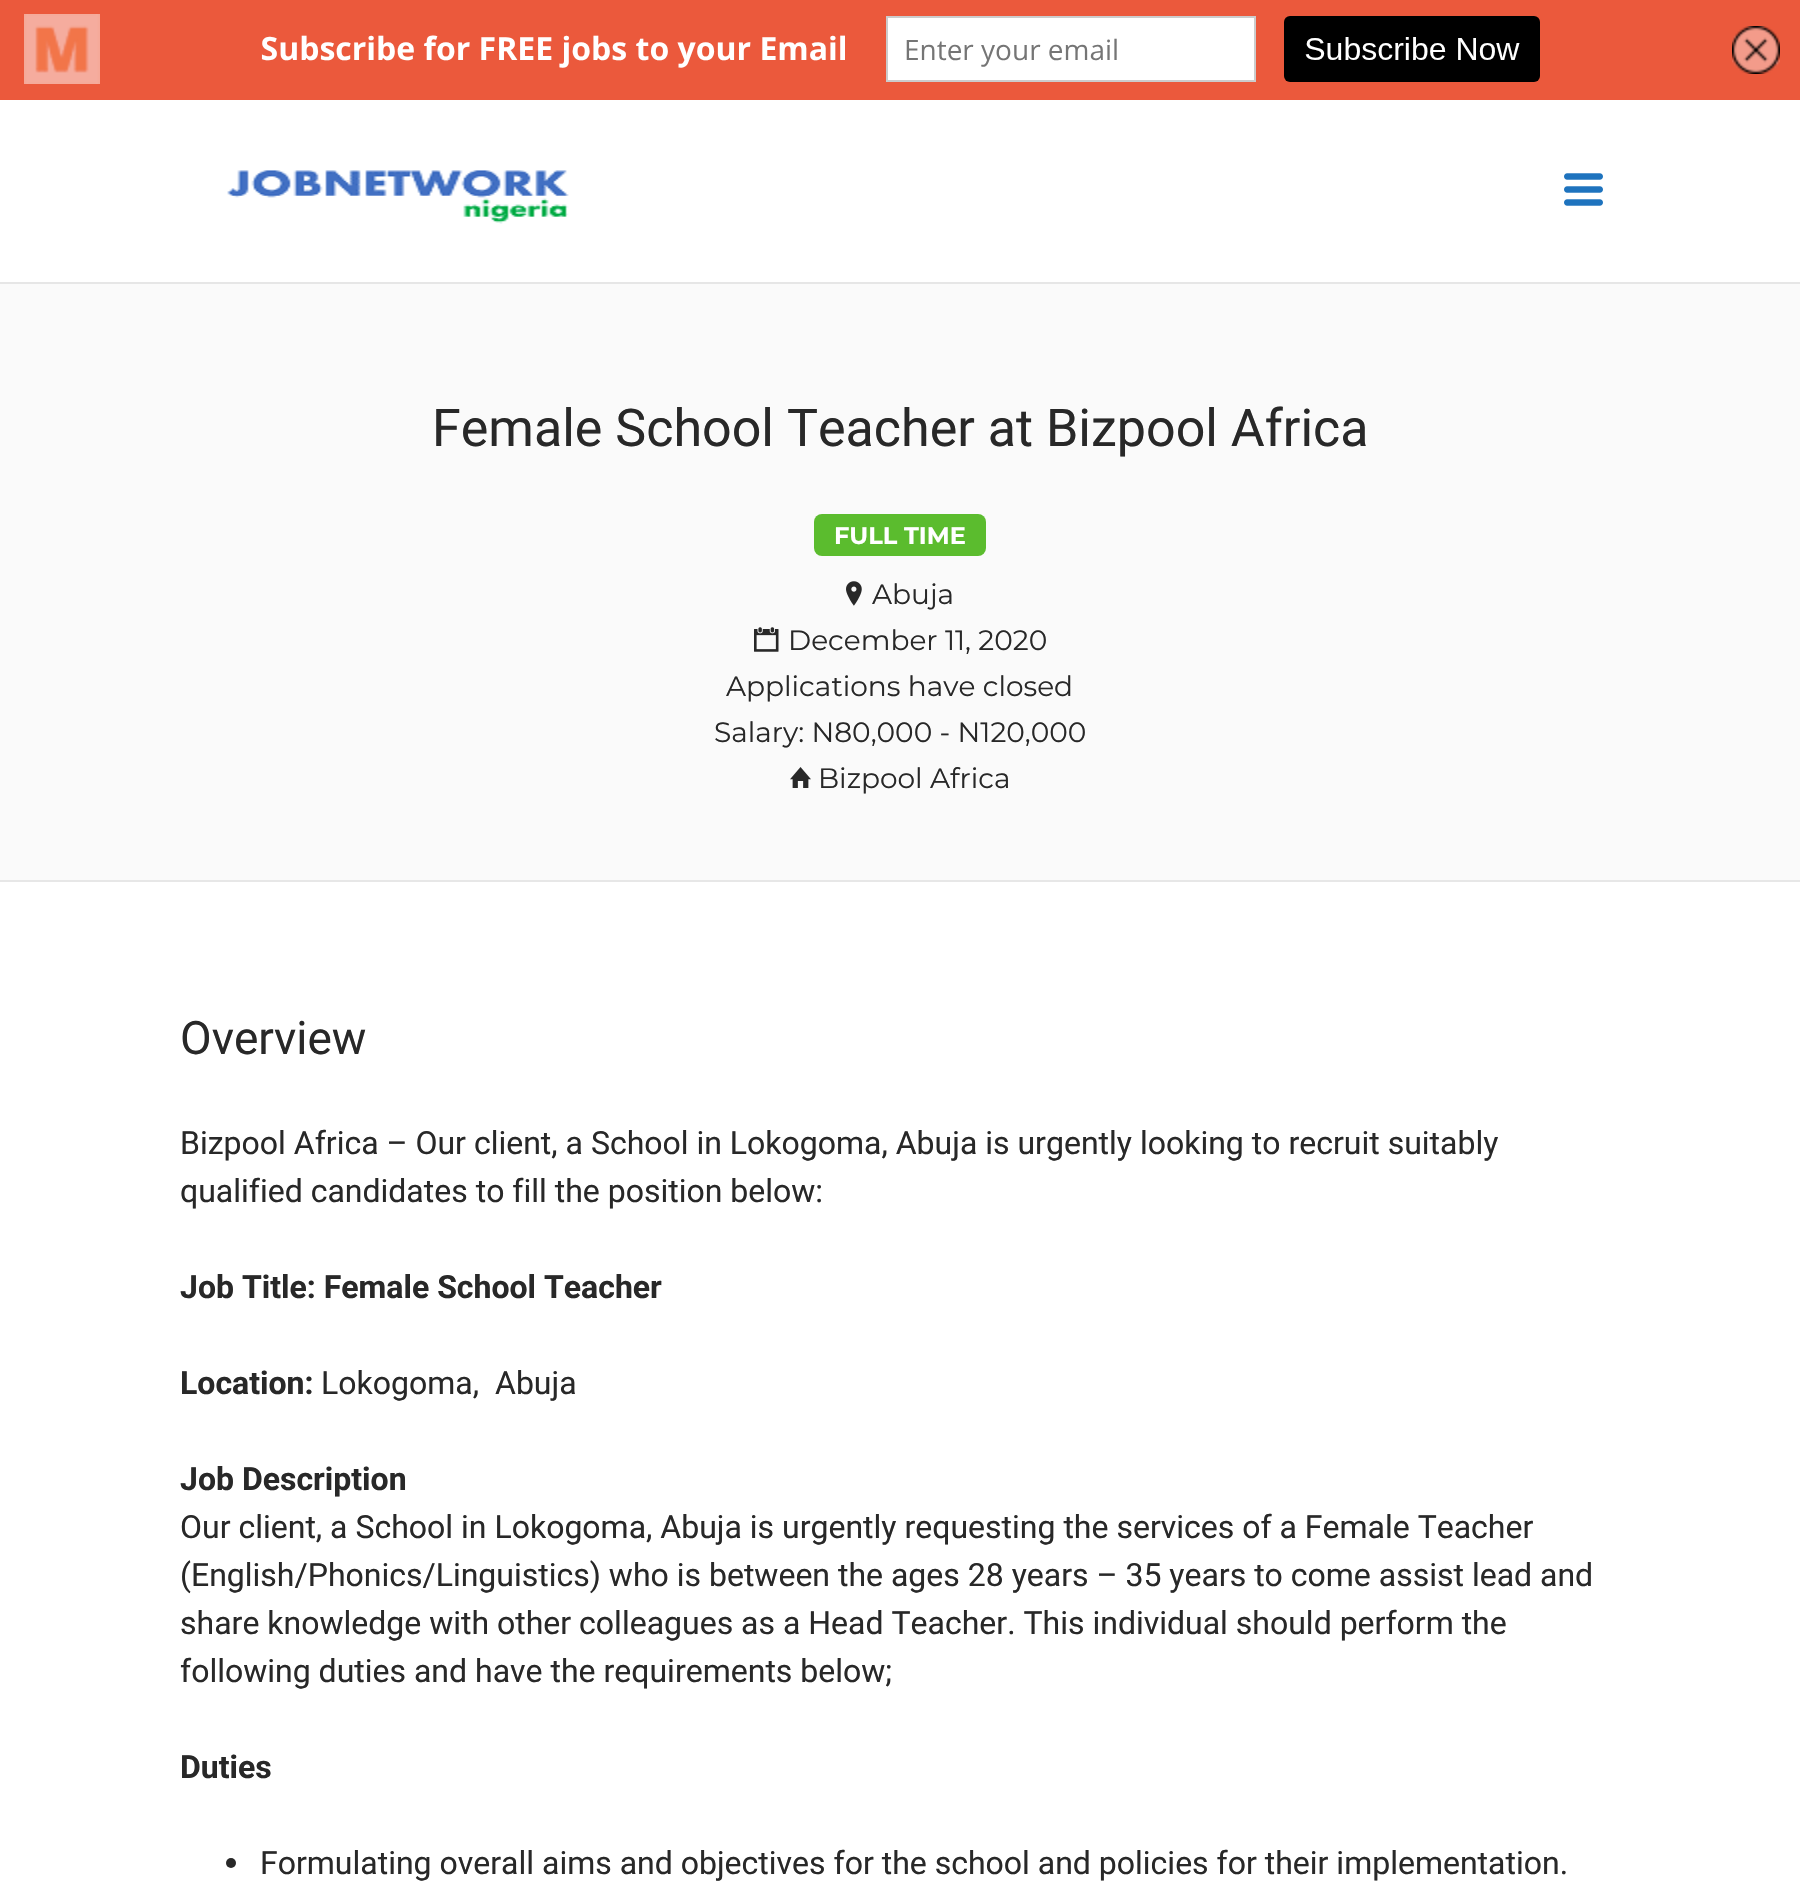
void draw(SkCanvas* canvas) {
    SkPaint paint;
    paint.setAntiAlias(true);
    canvas->clear(0xFFFFFFFF);
    canvas->drawImageRect(SkImages::DeferredFromEncodedData(SkData::MakeFromFileName("img1.png")), SkRect::MakeXYWH(0, 0, 1800, 100), SkSamplingOptions());
    paint.setColor(0xFFE6E6E6);
    canvas->drawRect(SkRect::MakeXYWH(0, 282, 1800, 2), paint);
    canvas->drawImageRect(SkImages::DeferredFromEncodedData(SkData::MakeFromFileName("img2.png")), SkRect::MakeXYWH(227, 170, 342, 54), SkSamplingOptions());
    canvas->drawImageRect(SkImages::DeferredFromEncodedData(SkData::MakeFromFileName("img3.png")), SkRect::MakeXYWH(1564, 173, 39, 33), SkSamplingOptions());
    paint.setColor(0xFFFAFAFA);
    canvas->drawRect(SkRect::MakeXYWH(0, 284, 1800, 596), paint);
    paint.setColor(0xFFE7E7E7);
    canvas->drawRect(SkRect::MakeXYWH(0, 880, 1800, 2), paint);
    SkFont font1(fontMgr->matchFamilyStyle("Roboto", SkFontStyle::Normal()), 52);
    font1.setSubpixel(true);
    paint.setColor(0xFF282828);
    canvas->drawString("Female School Teacher at Bizpool Africa", 432, 446, font1, paint);
    paint.setColor(0xFF5BBC2E);
    canvas->drawRoundRect(SkRect::MakeXYWH(814, 514, 172, 42), 8, 8, paint);
    SkFont font2(fontMgr->matchFamilyStyle("Montserrat", SkFontStyle::Bold()), 24);
    font2.setSubpixel(true);
    paint.setColor(0xFFFFFFFF);
    canvas->drawString("FULL TIME", 834, 544, font2, paint);
    canvas->drawImageRect(SkImages::DeferredFromEncodedData(SkData::MakeFromFileName("img4.png")), SkRect::MakeXYWH(846, 581, 16, 25), SkSamplingOptions());
    SkFont font3(fontMgr->matchFamilyStyle("Montserrat", SkFontStyle::Normal()), 28);
    font3.setSubpixel(true);
    paint.setColor(0xFF282828);
    canvas->drawString("Abuja", 872, 604, font3, paint);
    canvas->drawImageRect(SkImages::DeferredFromEncodedData(SkData::MakeFromFileName("img5.png")), SkRect::MakeXYWH(754, 627, 25, 25), SkSamplingOptions());
    canvas->drawString("December 11, 2020", 788, 650, font3, paint);
    canvas->drawString("Applications have closed", 726, 696, font3, paint);
    canvas->drawString("Salary: N80,000 - N120,000", 714, 742, font3, paint);
    canvas->drawImageRect(SkImages::DeferredFromEncodedData(SkData::MakeFromFileName("img6.png")), SkRect::MakeXYWH(790, 767, 21, 21), SkSamplingOptions());
    canvas->drawString("Bizpool Africa", 818, 788, font3, paint);
    SkFont font4(fontMgr->matchFamilyStyle("Roboto", SkFontStyle::Normal()), 46);
    font4.setSubpixel(true);
    canvas->drawString("Overview", 180, 1054, font4, paint);
    SkFont font5(fontMgr->matchFamilyStyle("Roboto", SkFontStyle::Normal()), 32);
    font5.setSubpixel(true);
    canvas->drawString("Bizpool Africa – Our client, a School in Lokogoma, Abuja is urgently looking to recruit suitably", 180, 1154, font5, paint);
    canvas->drawString("qualified candidates to fill the position below:", 180, 1202, font5, paint);
    SkFont font6(fontMgr->matchFamilyStyle("Roboto", SkFontStyle::Bold()), 32);
    font6.setSubpixel(true);
    canvas->drawString("Job Title: Female School Teacher", 180, 1298, font6, paint);
    canvas->drawString("Location:", 180, 1394, font6, paint);
    canvas->drawString("Lokogoma,", 321, 1394, font5, paint);
    canvas->drawString("Abuja", 495, 1394, font5, paint);
    canvas->drawString("Job Description", 180, 1490, font6, paint);
    canvas->drawString("Our client, a School in Lokogoma, Abuja is urgently requesting the services of a Female Teacher", 180, 1538, font5, paint);
    canvas->drawString("(English/Phonics/Linguistics) who is between the ages 28 years – 35 years to come assist lead and", 180, 1586, font5, paint);
    canvas->drawString("share knowledge with other colleagues as a Head Teacher. This individual should perform the", 180, 1634, font5, paint);
    canvas->drawString("following duties and have the requirements below;", 180, 1682, font5, paint);
    canvas->drawString("Duties", 180, 1778, font6, paint);
    canvas->drawCircle(231, 1863, 5, paint);
    canvas->drawString("Formulating overall aims and objectives for the school and policies for their implementation.", 260, 1874, font5, paint);
}
